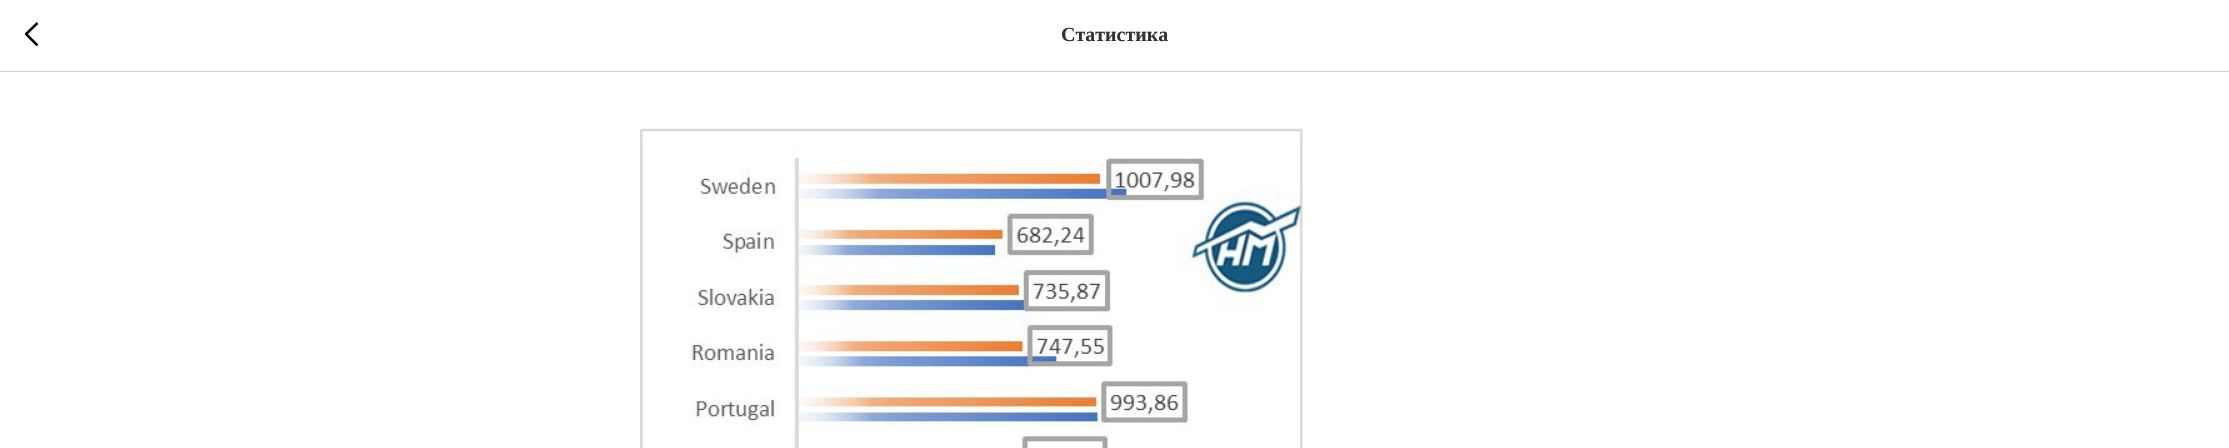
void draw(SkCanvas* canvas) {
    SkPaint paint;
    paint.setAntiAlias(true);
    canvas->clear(0xFFFFFFFF);
    paint.setColor(0xFFCCCCCC);
    canvas->drawRect(SkRect::MakeXYWH(0, 71, 2229, 1), paint);
    canvas->save();
    canvas->clipRect(SkRect::MakeXYWH(25, 21, 14, 25));
    paint.setStyle(SkPaint::kStroke_Style);
    paint.setStrokeWidth(2.5f);
    paint.setColor(0xFF000000);
    canvas->drawPath(SkPathBuilder().moveTo(37.5f, 45.5f).lineTo(26, 34).lineTo(37.5f, 23).detach(), paint);
    canvas->restore();
    SkFont font1(fontMgr->matchFamilyStyle("Liberation Serif", SkFontStyle::Bold()), 20);
    font1.setSubpixel(true);
    paint.setStyle(SkPaint::kFill_Style);
    paint.setColor(0xFF333333);
    canvas->drawString("Статистика", 1061, 41, font1, paint);
    canvas->drawImageRect(SkImages::DeferredFromEncodedData(SkData::MakeFromFileName("img1.png")), SkRect::MakeXYWH(640, 128, 663, 320), SkSamplingOptions());
}
